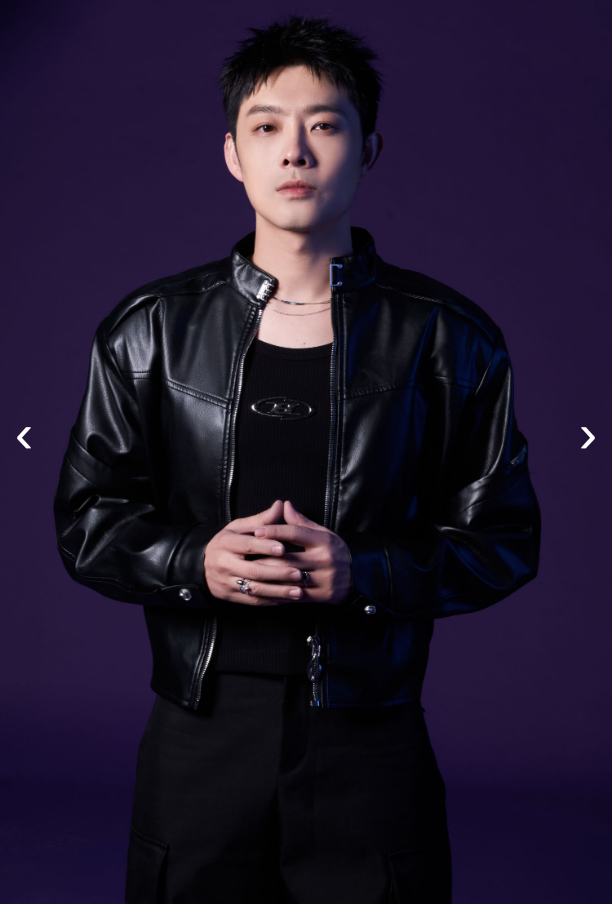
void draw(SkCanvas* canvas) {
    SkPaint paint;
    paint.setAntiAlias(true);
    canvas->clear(0xFFFFFFFF);
    canvas->drawImageRect(SkImages::DeferredFromEncodedData(SkData::MakeFromFileName("img1.png")), SkRect::MakeXYWH(0, 0, 612, 904), SkSamplingOptions());
    SkFont font1(fontMgr->matchFamilyStyle("Liberation Sans", SkFontStyle::Normal()), 54);
    font1.setSubpixel(true);
    paint.setColor(0xFFFFFFFF);
    canvas->drawString("‹", 15, 452, font1, paint);
    canvas->drawString("›", 579, 452, font1, paint);
}
